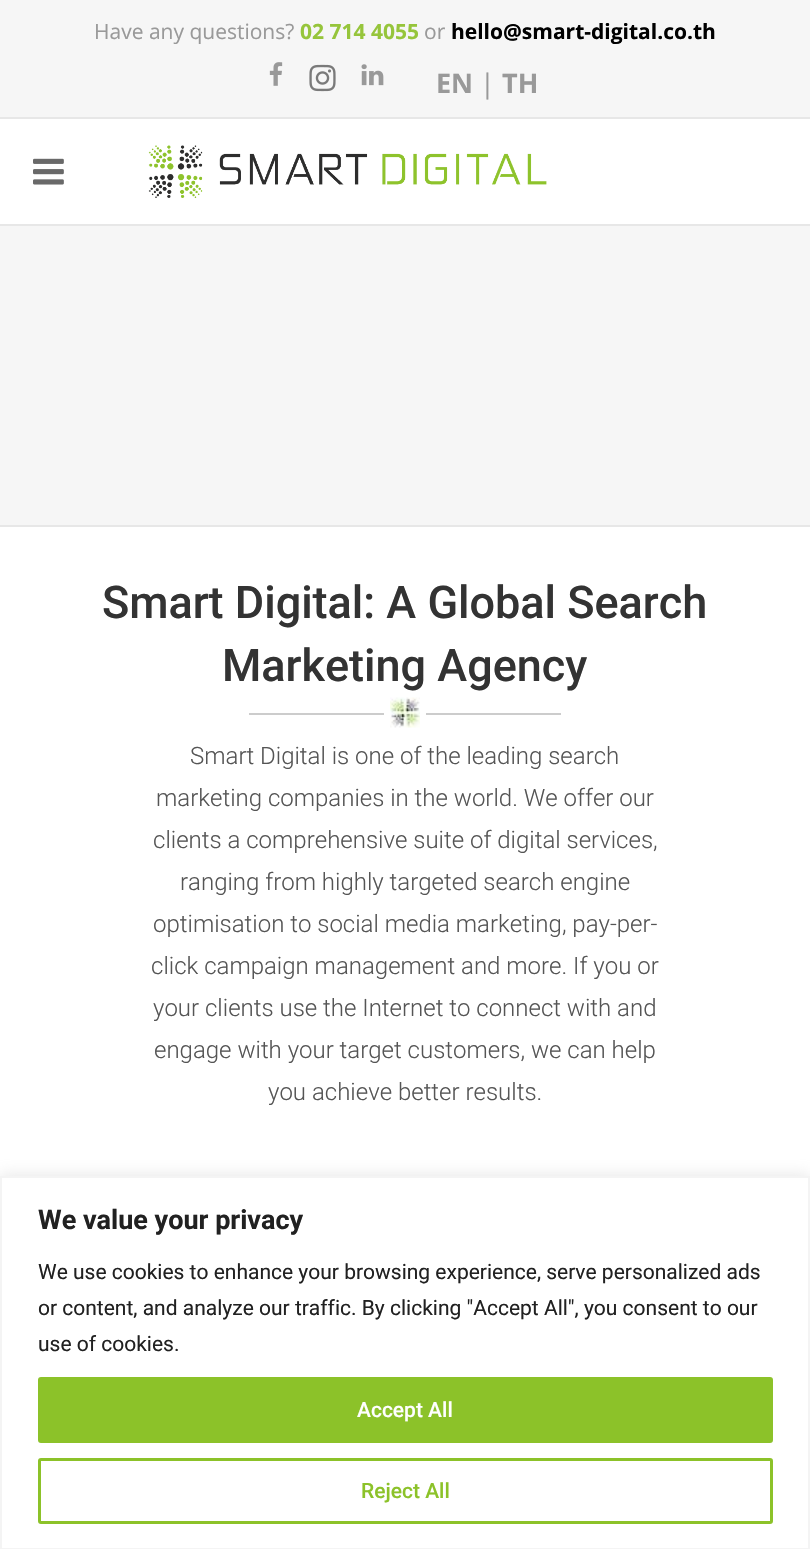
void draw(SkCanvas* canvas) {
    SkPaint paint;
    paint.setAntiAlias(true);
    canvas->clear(0xFFFFFFFF);
    paint.setColor(0xFFF6F6F6);
    canvas->drawRect(SkRect::MakeXYWH(0, 0, 810, 117), paint);
    paint.setColor(0xFFE7E7E7);
    canvas->drawRect(SkRect::MakeXYWH(0, 117, 810, 2), paint);
    SkFont font1(fontMgr->matchFamilyStyle("Open Sans", SkFontStyle::Normal()), 21);
    font1.setSubpixel(true);
    paint.setColor(0xFF999999);
    canvas->drawString("Have any questions?", 94, 39, font1, paint);
    SkFont font2(fontMgr->matchFamilyStyle("Open Sans", SkFontStyle::Bold()), 21);
    font2.setSubpixel(true);
    paint.setColor(0xFF96C53B);
    canvas->drawString("02 714 4055", 300, 39, font2, paint);
    paint.setColor(0xFF999999);
    canvas->drawString("or", 424, 39, font1, paint);
    paint.setColor(0xFF000000);
    canvas->drawString("hello@smart-digital.co.th", 451, 39, font2, paint);
    canvas->drawImageRect(SkImages::DeferredFromEncodedData(SkData::MakeFromFileName("img1.png")), SkRect::MakeXYWH(269, 62, 14, 24), SkSamplingOptions());
    canvas->drawImageRect(SkImages::DeferredFromEncodedData(SkData::MakeFromFileName("img2.png")), SkRect::MakeXYWH(309, 64, 27, 28), SkSamplingOptions());
    canvas->drawImageRect(SkImages::DeferredFromEncodedData(SkData::MakeFromFileName("img3.png")), SkRect::MakeXYWH(361, 64, 23, 22), SkSamplingOptions());
    SkFont font3(fontMgr->matchFamilyStyle("Open Sans", SkFontStyle::Bold()), 27);
    font3.setSubpixel(true);
    paint.setColor(0xFF999999);
    canvas->drawString("EN", 436, 93, font3, paint);
    SkFont font4(fontMgr->matchFamilyStyle("Open Sans", SkFontStyle::Normal()), 27);
    font4.setSubpixel(true);
    canvas->drawString("|", 480, 93, font4, paint);
    canvas->drawString("TH", 502, 93, font3, paint);
    paint.setColor(0xFFE7E7E7);
    canvas->drawRect(SkRect::MakeXYWH(0, 224, 810, 2), paint);
    canvas->drawImageRect(SkImages::DeferredFromEncodedData(SkData::MakeFromFileName("img4.png")), SkRect::MakeXYWH(33, 158, 31, 27), SkSamplingOptions());
    canvas->drawImageRect(SkImages::DeferredFromEncodedData(SkData::MakeFromFileName("img5.png")), SkRect::MakeXYWH(148, 145, 399, 53), SkSamplingOptions());
    paint.setColor(0xFFF6F6F6);
    canvas->drawRect(SkRect::MakeXYWH(0, 226, 810, 299), paint);
    paint.setColor(0xFFE7E7E7);
    canvas->drawRect(SkRect::MakeXYWH(0, 525, 810, 2), paint);
    SkFont font5(fontMgr->matchFamilyStyle("Roboto", SkFontStyle(500, SkFontStyle::kNormal_Width, SkFontStyle::kUpright_Slant)), 45);
    font5.setSubpixel(true);
    paint.setColor(0xFF333333);
    canvas->drawString("Smart Digital: A Global Search", 102, 618, font5, paint);
    canvas->drawString("Marketing Agency", 222, 681, font5, paint);
    paint.setColor(0xFFCCCCCC);
    canvas->drawRect(SkRect::MakeXYWH(249, 713, 135, 2), paint);
    canvas->drawImageRect(SkImages::DeferredFromEncodedData(SkData::MakeFromFileName("img6.png")), SkRect::MakeXYWH(390, 697, 30, 31), SkSamplingOptions());
    canvas->drawRect(SkRect::MakeXYWH(426, 713, 135, 2), paint);
    SkFont font6(fontMgr->matchFamilyStyle("Roboto", SkFontStyle(300, SkFontStyle::kNormal_Width, SkFontStyle::kUpright_Slant)), 24);
    font6.setSubpixel(true);
    paint.setColor(0xFF555555);
    canvas->drawString("Smart Digital is one of the leading search", 190, 764, font6, paint);
    canvas->drawString("marketing companies in the world. We offer our", 156, 806, font6, paint);
    canvas->drawString("clients a comprehensive suite of digital services,", 153, 848, font6, paint);
    canvas->drawString("ranging from highly targeted search engine", 180, 890, font6, paint);
    canvas->drawString("optimisation to social media marketing, pay-per-", 153, 932, font6, paint);
    canvas->drawString("click campaign management and more. If you or", 151, 974, font6, paint);
    canvas->drawString("your clients use the Internet to connect with and", 153, 1016, font6, paint);
    canvas->drawString("engage with your target customers, we can help", 154, 1058, font6, paint);
    canvas->drawString("you achieve better results.", 268, 1100, font6, paint);
    paint.setColor(0x4DACABAB);
    paint.setMaskFilter(SkMaskFilter::MakeBlur(kNormal_SkBlurStyle, 7.5f));
    canvas->drawRect(SkRect::MakeXYWH(0, 1175, 810, 373), paint);
    paint.setMaskFilter(nullptr);
    paint.setColor(0xFFFFFFFF);
    canvas->drawRect(SkRect::MakeXYWH(1, 1177, 808, 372), paint);
    paint.setStyle(SkPaint::kStroke_Style);
    paint.setStrokeWidth(2);
    paint.setColor(0xFFF4F4F4);
    canvas->drawRect(SkRect::MakeXYWH(1, 1177, 808, 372), paint);
    SkFont font7(fontMgr->matchFamilyStyle("Roboto", SkFontStyle::Bold()), 27);
    font7.setSubpixel(true);
    paint.setStyle(SkPaint::kFill_Style);
    paint.setColor(0xFF212121);
    canvas->drawString("We value your privacy", 38, 1229, font7, paint);
    SkFont font8(fontMgr->matchFamilyStyle("Roboto", SkFontStyle::Normal()), 21);
    font8.setSubpixel(true);
    canvas->drawString("We use cookies to enhance your browsing experience, serve personalized ads", 38, 1279, font8, paint);
    canvas->drawString("or content, and analyze our traffic. By clicking \"Accept All\", you consent to our", 38, 1315, font8, paint);
    canvas->drawString("use of cookies.", 38, 1351, font8, paint);
    paint.setColor(0xFF8CC229);
    canvas->drawRoundRect(SkRect::MakeXYWH(39.5f, 1378.5f, 732, 63), 1.5f, 1.5f, paint);
    paint.setStyle(SkPaint::kStroke_Style);
    paint.setStrokeWidth(3);
    canvas->drawRoundRect(SkRect::MakeXYWH(39.5f, 1378.5f, 732, 63), 1.5f, 1.5f, paint);
    SkFont font9(fontMgr->matchFamilyStyle("Roboto", SkFontStyle(500, SkFontStyle::kNormal_Width, SkFontStyle::kUpright_Slant)), 21);
    font9.setSubpixel(true);
    paint.setStyle(SkPaint::kFill_Style);
    paint.setColor(0xFFFFFFFF);
    canvas->drawString("Accept All", 357, 1417, font9, paint);
    paint.setStyle(SkPaint::kStroke_Style);
    paint.setColor(0xFF8CC229);
    canvas->drawRoundRect(SkRect::MakeXYWH(39.5f, 1459.5f, 732, 63), 1.5f, 1.5f, paint);
    paint.setStyle(SkPaint::kFill_Style);
    canvas->drawString("Reject All", 361, 1498, font9, paint);
}
